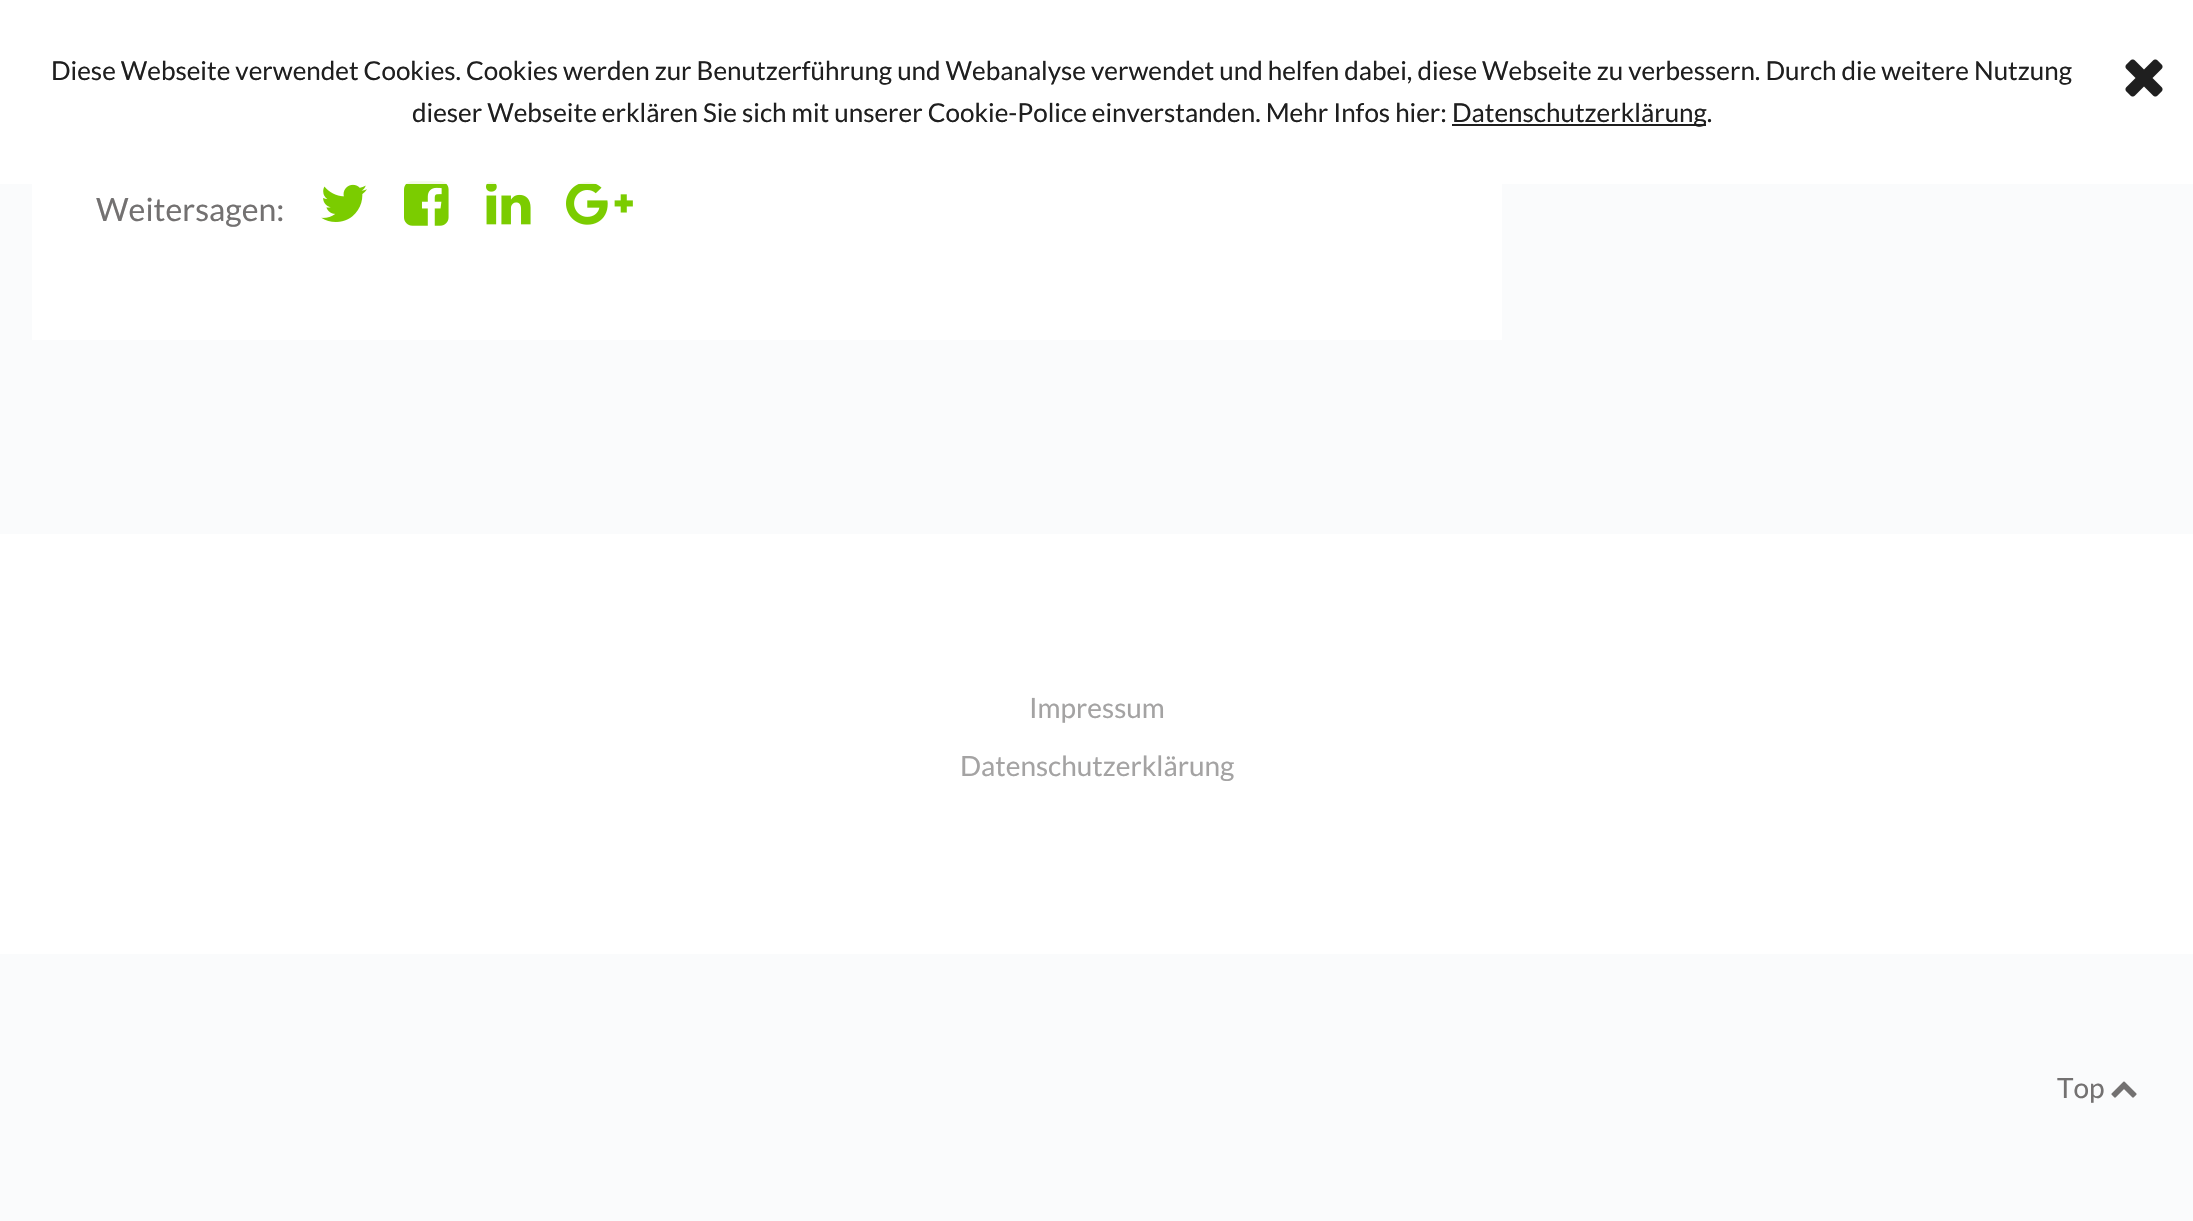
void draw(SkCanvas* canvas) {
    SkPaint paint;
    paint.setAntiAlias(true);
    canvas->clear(0xFFFAFBFC);
    paint.setColor(0xFFFFFFFF);
    canvas->drawRoundRect(SkRect::MakeXYWH(1556, -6, 574, 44), 6, 6, paint);
    canvas->drawRect(SkRect::MakeXYWH(32, 0, 1470, 340), paint);
    canvas->drawImageRect(SkImages::DeferredFromEncodedData(SkData::MakeFromFileName("img3.png")), SkRect::MakeXYWH(404, 181, 45, 45), SkSamplingOptions());
    canvas->drawImageRect(SkImages::DeferredFromEncodedData(SkData::MakeFromFileName("img4.png")), SkRect::MakeXYWH(486, 181, 45, 44), SkSamplingOptions());
    canvas->drawImageRect(SkImages::DeferredFromEncodedData(SkData::MakeFromFileName("img5.png")), SkRect::MakeXYWH(566, 182, 67, 43), SkSamplingOptions());
    paint.setColor(0xE6FFFFFF);
    canvas->drawRect(SkRect::MakeXYWH(0, 0, 2193, 184), paint);
    SkFont font1(fontMgr->matchFamilyStyle("Lato", SkFontStyle::Normal()), 26);
    font1.setSubpixel(true);
    paint.setColor(0xFF1F1F1F);
    canvas->drawString("Diese Webseite verwendet Cookies. Cookies werden zur Benutzerführung und Webanalyse verwendet und helfen dabei, diese Webseite zu verbessern. Durch die weitere Nutzung", 51, 80, font1, paint);
    canvas->drawString("dieser Webseite erklären Sie sich mit unserer Cookie-Police einverstanden. Mehr Infos hier:", 412, 122, font1, paint);
    canvas->drawRect(SkRect::MakeXYWH(1452, 124, 254, 2), paint);
    canvas->drawString("Datenschutzerklärung.", 1452, 122, font1, paint);
    canvas->drawImageRect(SkImages::DeferredFromEncodedData(SkData::MakeFromFileName("img1.png")), SkRect::MakeXYWH(2125, 59, 38, 38), SkSamplingOptions());
    SkFont font2(fontMgr->matchFamilyStyle("Lato", SkFontStyle::Normal()), 32);
    font2.setSubpixel(true);
    paint.setColor(0xFF737171);
    canvas->drawString("Weitersagen:", 96, 221, font2, paint);
    canvas->drawImageRect(SkImages::DeferredFromEncodedData(SkData::MakeFromFileName("img2.png")), SkRect::MakeXYWH(321, 184, 46, 38), SkSamplingOptions());
    paint.setColor(0xFFFFFFFF);
    canvas->drawRect(SkRect::MakeXYWH(0, 534, 2193, 420), paint);
    SkFont font3(fontMgr->matchFamilyStyle("Lato", SkFontStyle::Normal()), 28);
    font3.setSubpixel(true);
    paint.setColor(0xFFA4A3A3);
    canvas->drawString("Impressum", 1029, 718, font3, paint);
    canvas->drawString("Datenschutzerklärung", 960, 776, font3, paint);
    paint.setColor(0xFF737171);
    canvas->drawString("Top", 2057, 1098, font3, paint);
    canvas->drawImageRect(SkImages::DeferredFromEncodedData(SkData::MakeFromFileName("img6.png")), SkRect::MakeXYWH(2111, 1081, 26, 17), SkSamplingOptions());
}
